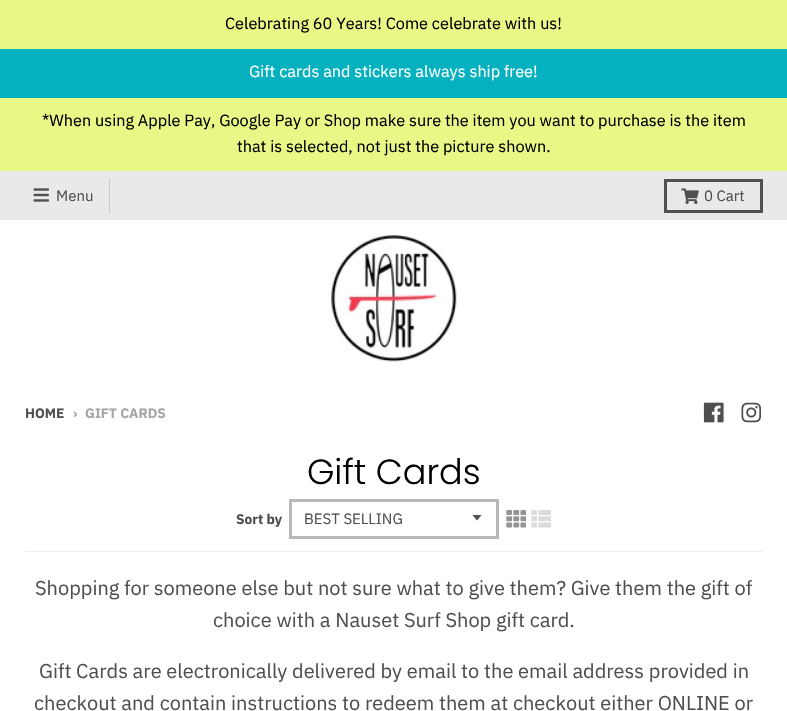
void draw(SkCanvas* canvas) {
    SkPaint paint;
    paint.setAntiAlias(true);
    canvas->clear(0xFFFFFFFF);
    paint.setColor(0xFFE8F786);
    canvas->drawRect(SkRect::MakeXYWH(0, 0, 787, 49), paint);
    SkFont font1(fontMgr->matchFamilyStyle("IBM Plex Sans", SkFontStyle::Normal()), 16.25f);
    font1.setSubpixel(true);
    paint.setColor(0xFF000000);
    canvas->drawString("Celebrating 60 Years! Come celebrate with us!", 225, 29, font1, paint);
    paint.setColor(0xFF05B1BF);
    canvas->drawRect(SkRect::MakeXYWH(0, 49, 787, 49), paint);
    paint.setColor(0xFFFFFFFF);
    canvas->drawString("Gift cards and stickers always ship free!", 249, 77, font1, paint);
    paint.setColor(0xFFE8F786);
    canvas->drawRect(SkRect::MakeXYWH(0, 98, 787, 73), paint);
    paint.setColor(0xFF000000);
    canvas->drawString("*When using Apple Pay, Google Pay or Shop make sure the item you want to purchase is the item", 42, 126, font1, paint);
    canvas->drawString("that is selected, not just the picture shown.", 237, 152, font1, paint);
    paint.setColor(0xFFE9E9E9);
    canvas->drawRect(SkRect::MakeXYWH(0, 171, 787, 49), paint);
    paint.setColor(0xFFCACACA);
    canvas->drawRect(SkRect::MakeXYWH(109, 179, 1, 34), paint);
    canvas->drawImageRect(SkImages::DeferredFromEncodedData(SkData::MakeFromFileName("img1.png")), SkRect::MakeXYWH(33, 188, 16, 14), SkSamplingOptions());
    SkFont font2(fontMgr->matchFamilyStyle("IBM Plex Sans", SkFontStyle::Normal()), 15);
    font2.setSubpixel(true);
    paint.setColor(0xFF4F4F4F);
    canvas->drawString("Menu", 56, 201, font2, paint);
    paint.setStyle(SkPaint::kStroke_Style);
    paint.setStrokeWidth(3);
    paint.setColor(0xFF505050);
    canvas->drawRect(SkRect::MakeXYWH(665.5f, 180.5f, 96, 31), paint);
    canvas->drawImageRect(SkImages::DeferredFromEncodedData(SkData::MakeFromFileName("img2.png")), SkRect::MakeXYWH(681, 188, 18, 16), SkSamplingOptions());
    paint.setStyle(SkPaint::kFill_Style);
    paint.setColor(0xFF4F4F4F);
    canvas->drawString("0 Cart", 704, 201, font2, paint);
    canvas->drawImageRect(SkImages::DeferredFromEncodedData(SkData::MakeFromFileName("img3.png")), SkRect::MakeXYWH(331, 235, 126, 127), SkSamplingOptions());
    SkFont font3(fontMgr->matchFamilyStyle("IBM Plex Sans", SkFontStyle::Bold()), 13.75f);
    font3.setSubpixel(true);
    canvas->drawString("HOME", 25, 418, font3, paint);
    paint.setColor(0xFFA7A7A7);
    canvas->drawString("›", 73, 418, font3, paint);
    canvas->drawString("GIFT CARDS", 85, 418, font3, paint);
    canvas->drawImageRect(SkImages::DeferredFromEncodedData(SkData::MakeFromFileName("img4.png")), SkRect::MakeXYWH(703, 402, 21, 21), SkSamplingOptions());
    canvas->drawImageRect(SkImages::DeferredFromEncodedData(SkData::MakeFromFileName("img5.png")), SkRect::MakeXYWH(741, 402, 21, 21), SkSamplingOptions());
    paint.setColor(0xFFEDEDED);
    canvas->drawRect(SkRect::MakeXYWH(25, 551, 738, 1), paint);
    SkFont font4(fontMgr->matchFamilyStyle("Poppins", SkFontStyle(300, SkFontStyle::kNormal_Width, SkFontStyle::kUpright_Slant)), 35);
    font4.setSubpixel(true);
    paint.setColor(0xFF000000);
    canvas->drawString("Gift Cards", 307, 484, font4, paint);
    paint.setColor(0xFF4F4F4F);
    canvas->drawString("Sort by", 236, 524, font3, paint);
    canvas->drawPath(SkPathBuilder().moveTo(472.5f, 515).lineTo(477, 520.5f).lineTo(481.5f, 515).close().detach(), paint);
    paint.setStyle(SkPaint::kStroke_Style);
    paint.setColor(0xFFB8B8B8);
    canvas->drawRect(SkRect::MakeXYWH(290.5f, 500.5f, 207, 37), paint);
    paint.setStyle(SkPaint::kFill_Style);
    paint.setColor(0xFF4F4F4F);
    canvas->drawString("BEST SELLING", 304, 524, font2, paint);
    canvas->drawImageRect(SkImages::DeferredFromEncodedData(SkData::MakeFromFileName("img6.png")), SkRect::MakeXYWH(506, 510, 20, 18), SkSamplingOptions());
    canvas->drawImageRect(SkImages::DeferredFromEncodedData(SkData::MakeFromFileName("img7.png")), SkRect::MakeXYWH(531, 510, 20, 18), SkSamplingOptions());
    SkFont font5(fontMgr->matchFamilyStyle("IBM Plex Sans", SkFontStyle::Normal()), 20);
    font5.setSubpixel(true);
    canvas->drawString("Shopping for someone else but not sure what to give them? Give them the gift of", 35, 595, font5, paint);
    canvas->drawString("choice with a Nauset Surf Shop gift card.", 213, 627, font5, paint);
    canvas->drawString("Gift Cards are electronically delivered by email to the email address provided in", 39, 678, font5, paint);
    canvas->drawString("checkout and contain instructions to redeem them at checkout either ONLINE or", 34, 710, font5, paint);
}
